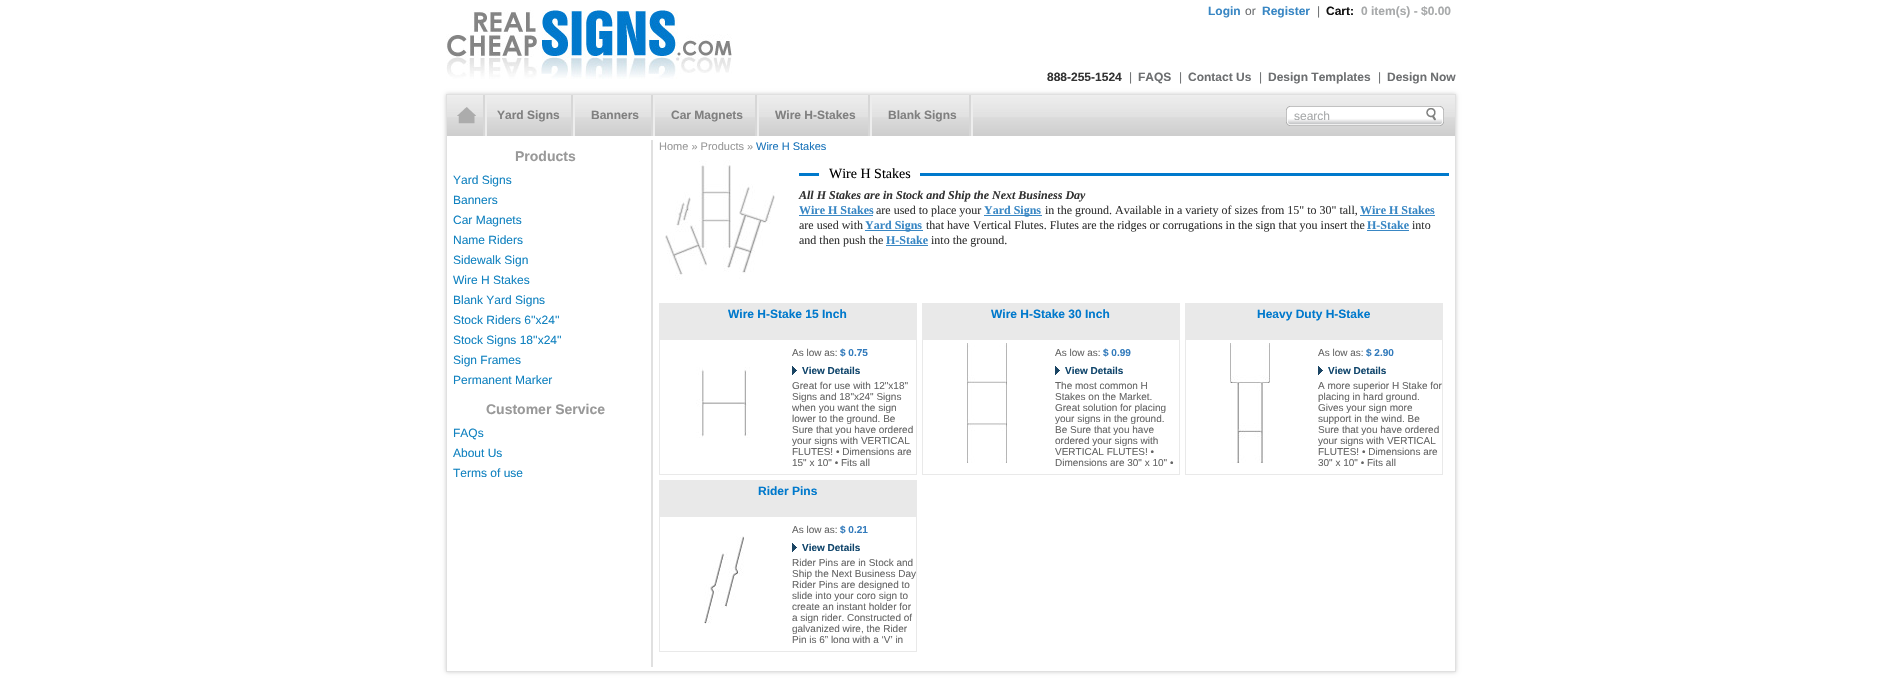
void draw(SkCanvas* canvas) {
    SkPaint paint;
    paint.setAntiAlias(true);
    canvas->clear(0xFFFFFFFF);
    canvas->drawImageRect(SkImages::DeferredFromEncodedData(SkData::MakeFromFileName("img1.png")), SkRect::MakeXYWH(446, 10, 286, 69), SkSamplingOptions());
    SkFont font1(fontMgr->matchFamilyStyle("Liberation Sans", SkFontStyle::Bold()), 12);
    font1.setSubpixel(true);
    paint.setColor(0xFF3987C4);
    canvas->drawString("Login", 1208, 15, font1, paint);
    SkFont font2(fontMgr->matchFamilyStyle("Liberation Sans", SkFontStyle::Normal()), 12);
    font2.setSubpixel(true);
    paint.setColor(0xFF6D6F71);
    canvas->drawString("or", 1245, 15, font2, paint);
    paint.setColor(0xFF3987C4);
    canvas->drawString("Register", 1262, 15, font1, paint);
    paint.setColor(0xFF6D6F71);
    canvas->drawString("|", 1317, 15, font2, paint);
    paint.setColor(0xFF111111);
    canvas->drawString("Cart:", 1326, 15, font1, paint);
    paint.setColor(0xFFA7A9AA);
    canvas->drawString("0 item(s) - $0.00", 1361, 15, font1, paint);
    paint.setColor(0xFF333333);
    canvas->drawString("888-255-1524", 1047, 81, font1, paint);
    paint.setColor(0xFF6D6F71);
    canvas->drawString("|", 1129, 81, font2, paint);
    canvas->drawString("FAQS", 1138, 81, font1, paint);
    canvas->drawString("|", 1179, 81, font2, paint);
    canvas->drawString("Contact Us", 1188, 81, font1, paint);
    canvas->drawString("|", 1259, 81, font2, paint);
    canvas->drawString("Design Templates", 1268, 81, font1, paint);
    canvas->drawString("|", 1378, 81, font2, paint);
    canvas->drawString("Design Now", 1387, 81, font1, paint);
    canvas->save();
    canvas->clipPath(SkPathBuilder(SkPathFillType::kEvenOdd).moveTo(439, 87).lineTo(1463, 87).lineTo(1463, 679).lineTo(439, 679).close().moveTo(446, 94).lineTo(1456, 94).lineTo(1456, 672).lineTo(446, 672).close().detach(), true);
    paint.setColor(0xFFCCCCCC);
    paint.setMaskFilter(SkMaskFilter::MakeBlur(kNormal_SkBlurStyle, 2));
    canvas->drawRect(SkRect::MakeXYWH(446, 94, 1010, 578), paint);
    paint.setMaskFilter(nullptr);
    canvas->restore();
    paint.setStyle(SkPaint::kStroke_Style);
    paint.setStrokeWidth(1);
    paint.setColor(0xFFE0E0E0);
    canvas->drawRect(SkRect::MakeXYWH(446.5f, 94.5f, 1009, 577), paint);
    canvas->drawImageRect(SkImages::DeferredFromEncodedData(SkData::MakeFromFileName("img2.png")), SkRect::MakeXYWH(447, 95, 1008, 41), SkSamplingOptions());
    canvas->drawImageRect(SkImages::DeferredFromEncodedData(SkData::MakeFromFileName("img3.png")), SkRect::MakeXYWH(483, 95, 4, 41), SkSamplingOptions());
    canvas->drawImageRect(SkImages::DeferredFromEncodedData(SkData::MakeFromFileName("img4.png")), SkRect::MakeXYWH(457, 107, 19, 17), SkSamplingOptions());
    canvas->drawImageRect(SkImages::DeferredFromEncodedData(SkData::MakeFromFileName("img3.png")), SkRect::MakeXYWH(571, 95, 4, 41), SkSamplingOptions());
    paint.setStyle(SkPaint::kFill_Style);
    paint.setColor(0xFF808080);
    canvas->drawString("Yard Signs", 497, 119, font1, paint);
    canvas->drawImageRect(SkImages::DeferredFromEncodedData(SkData::MakeFromFileName("img3.png")), SkRect::MakeXYWH(651, 95, 4, 41), SkSamplingOptions());
    canvas->drawString("Banners", 591, 119, font1, paint);
    canvas->drawImageRect(SkImages::DeferredFromEncodedData(SkData::MakeFromFileName("img3.png")), SkRect::MakeXYWH(755, 95, 4, 41), SkSamplingOptions());
    canvas->drawString("Car Magnets", 671, 119, font1, paint);
    canvas->drawImageRect(SkImages::DeferredFromEncodedData(SkData::MakeFromFileName("img3.png")), SkRect::MakeXYWH(868, 95, 4, 41), SkSamplingOptions());
    canvas->drawString("Wire H-Stakes", 775, 119, font1, paint);
    canvas->drawImageRect(SkImages::DeferredFromEncodedData(SkData::MakeFromFileName("img3.png")), SkRect::MakeXYWH(969, 95, 4, 41), SkSamplingOptions());
    canvas->drawString("Blank Signs", 888, 119, font1, paint);
    canvas->drawImageRect(SkImages::DeferredFromEncodedData(SkData::MakeFromFileName("img5.png")), SkRect::MakeXYWH(1286, 106, 158, 20), SkSamplingOptions());
    paint.setColor(0xFFA7A9AA);
    canvas->drawString("search", 1294, 120, font2, paint);
    canvas->drawImageRect(SkImages::DeferredFromEncodedData(SkData::MakeFromFileName("img6.png")), SkRect::MakeXYWH(1426, 108, 10, 13), SkSamplingOptions());
    SkFont font3(fontMgr->matchFamilyStyle("Liberation Sans", SkFontStyle::Bold()), 14);
    font3.setSubpixel(true);
    paint.setColor(0xFF999999);
    canvas->drawString("Products", 515, 161, font3, paint);
    paint.setColor(0xFF1182C0);
    canvas->drawString("Yard Signs", 453, 184, font2, paint);
    canvas->drawString("Banners", 453, 204, font2, paint);
    canvas->drawString("Car Magnets", 453, 224, font2, paint);
    canvas->drawString("Name Riders", 453, 244, font2, paint);
    canvas->drawString("Sidewalk Sign", 453, 264, font2, paint);
    canvas->drawString("Wire H Stakes", 453, 284, font2, paint);
    canvas->drawString("Blank Yard Signs", 453, 304, font2, paint);
    canvas->drawString("Stock Riders 6''x24''", 453, 324, font2, paint);
    canvas->drawString("Stock Signs 18''x24''", 453, 344, font2, paint);
    canvas->drawString("Sign Frames", 453, 364, font2, paint);
    canvas->drawString("Permanent Marker", 453, 384, font2, paint);
    paint.setColor(0xFF999999);
    canvas->drawString("Customer Service", 486, 414, font3, paint);
    paint.setColor(0xFF1182C0);
    canvas->drawString("FAQs", 453, 437, font2, paint);
    canvas->drawString("About Us", 453, 457, font2, paint);
    canvas->drawString("Terms of use", 453, 477, font2, paint);
    paint.setColor(0xFFE0E0E0);
    canvas->drawRect(SkRect::MakeXYWH(651, 140, 2, 527), paint);
    SkFont font4(fontMgr->matchFamilyStyle("Liberation Sans", SkFontStyle::Normal()), 11);
    font4.setSubpixel(true);
    paint.setColor(0xFF999999);
    canvas->drawString("Home » Products »", 659, 150, font4, paint);
    paint.setColor(0xFF1B75BB);
    canvas->drawString("Wire H Stakes", 756, 150, font4, paint);
    canvas->drawImageRect(SkImages::DeferredFromEncodedData(SkData::MakeFromFileName("img7.png")), SkRect::MakeXYWH(665, 160, 110, 120), SkSamplingOptions());
    paint.setColor(0xFF0079CC);
    canvas->drawRect(SkRect::MakeXYWH(799, 173, 650, 3), paint);
    paint.setColor(0xFFFFFFFF);
    canvas->drawRect(SkRect::MakeXYWH(819, 173, 101, 3), paint);
    SkFont font5(fontMgr->matchFamilyStyle("Liberation Serif", SkFontStyle::Normal()), 14);
    font5.setSubpixel(true);
    paint.setColor(0xFF000000);
    canvas->drawString("Wire H Stakes", 829, 178, font5, paint);
    SkFont font6(fontMgr->matchFamilyStyle("Liberation Serif", SkFontStyle::BoldItalic()), 12);
    font6.setSubpixel(true);
    paint.setColor(0xFF333333);
    canvas->drawString("All H Stakes are in Stock and Ship the Next Business Day", 799, 199, font6, paint);
    SkFont font7(fontMgr->matchFamilyStyle("Liberation Serif", SkFontStyle::Bold()), 12);
    font7.setSubpixel(true);
    paint.setColor(0xFF3987C4);
    canvas->drawString("Wire H Stakes", 799, 214, font7, paint);
    canvas->drawRect(SkRect::MakeXYWH(799, 215, 74, 1), paint);
    SkFont font8(fontMgr->matchFamilyStyle("Liberation Serif", SkFontStyle::Normal()), 12);
    font8.setSubpixel(true);
    paint.setColor(0xFF333333);
    canvas->drawString("are used to place your", 876, 214, font8, paint);
    paint.setColor(0xFF3987C4);
    canvas->drawRect(SkRect::MakeXYWH(984, 215, 58, 1), paint);
    canvas->drawString("Yard Signs", 984, 214, font7, paint);
    paint.setColor(0xFF333333);
    canvas->drawString("in the ground. Available in a variety of sizes from 15\" to 30\" tall,", 1045, 214, font8, paint);
    paint.setColor(0xFF3987C4);
    canvas->drawString("Wire H Stakes", 1360, 214, font7, paint);
    canvas->drawRect(SkRect::MakeXYWH(1360, 215, 75, 1), paint);
    paint.setColor(0xFF333333);
    canvas->drawString("are used with", 799, 229, font8, paint);
    paint.setColor(0xFF3987C4);
    canvas->drawRect(SkRect::MakeXYWH(865, 230, 58, 1), paint);
    canvas->drawString("Yard Signs", 865, 229, font7, paint);
    paint.setColor(0xFF333333);
    canvas->drawString("that have Vertical Flutes. Flutes are the ridges or corrugations in the sign that you insert the", 926, 229, font8, paint);
    paint.setColor(0xFF3987C4);
    canvas->drawString("H-Stake", 1367, 229, font7, paint);
    canvas->drawRect(SkRect::MakeXYWH(1367, 230, 42, 1), paint);
    paint.setColor(0xFF333333);
    canvas->drawString("into", 1412, 229, font8, paint);
    canvas->drawString("and then push the", 799, 244, font8, paint);
    paint.setColor(0xFF3987C4);
    canvas->drawString("H-Stake", 886, 244, font7, paint);
    canvas->drawRect(SkRect::MakeXYWH(886, 245, 42, 1), paint);
    paint.setColor(0xFF333333);
    canvas->drawString("into the ground.", 931, 244, font8, paint);
    paint.setStyle(SkPaint::kStroke_Style);
    paint.setColor(0xFFE9E9E9);
    canvas->drawRect(SkRect::MakeXYWH(659.5f, 303.5f, 257, 171), paint);
    paint.setStyle(SkPaint::kFill_Style);
    canvas->drawRect(SkRect::MakeXYWH(660, 304, 256, 36), paint);
    paint.setColor(0xFF0079CC);
    canvas->drawString("Wire H-Stake 15 Inch", 728, 318, font1, paint);
    canvas->drawImageRect(SkImages::DeferredFromEncodedData(SkData::MakeFromFileName("img8.png")), SkRect::MakeXYWH(696, 367, 54, 71), SkSamplingOptions());
    SkFont font9(fontMgr->matchFamilyStyle("Liberation Sans", SkFontStyle::Normal()), 10);
    font9.setSubpixel(true);
    paint.setColor(0xFF666666);
    canvas->drawString("As low as:", 792, 356, font9, paint);
    SkFont font10(fontMgr->matchFamilyStyle("Liberation Sans", SkFontStyle::Bold()), 10);
    font10.setSubpixel(true);
    paint.setColor(0xFF337BBC);
    canvas->drawString("$ 0.75", 840, 356, font10, paint);
    canvas->drawImageRect(SkImages::DeferredFromEncodedData(SkData::MakeFromFileName("img9.png")), SkRect::MakeXYWH(792, 366, 5, 9), SkSamplingOptions());
    paint.setColor(0xFF11466C);
    canvas->drawString("View Details", 802, 374, font10, paint);
    paint.setColor(0xFF666666);
    canvas->drawString("Great for use with 12\"x18\"", 792, 389, font9, paint);
    canvas->drawString("Signs and 18\"x24\" Signs", 792, 400, font9, paint);
    canvas->drawString("when you want the sign", 792, 411, font9, paint);
    canvas->drawString("lower to the ground. Be", 792, 422, font9, paint);
    canvas->drawString("Sure that you have ordered", 792, 433, font9, paint);
    canvas->save();
    canvas->clipRect(SkRect::MakeXYWH(792, 380, 124, 86));
    canvas->drawString("your signs with VERTICAL", 792, 444, font9, paint);
    canvas->restore();
    canvas->drawString("FLUTES! • Dimensions are", 792, 455, font9, paint);
    canvas->drawString("15\" x 10\" • Fits all", 792, 466, font9, paint);
    paint.setStyle(SkPaint::kStroke_Style);
    paint.setColor(0xFFE9E9E9);
    canvas->drawRect(SkRect::MakeXYWH(922.5f, 303.5f, 257, 171), paint);
    paint.setStyle(SkPaint::kFill_Style);
    canvas->drawRect(SkRect::MakeXYWH(923, 304, 256, 36), paint);
    paint.setColor(0xFF0079CC);
    canvas->drawString("Wire H-Stake 30 Inch", 991, 318, font1, paint);
    canvas->drawImageRect(SkImages::DeferredFromEncodedData(SkData::MakeFromFileName("img10.png")), SkRect::MakeXYWH(967, 343, 40, 120), SkSamplingOptions());
    paint.setColor(0xFF666666);
    canvas->drawString("As low as:", 1055, 356, font9, paint);
    paint.setColor(0xFF337BBC);
    canvas->drawString("$ 0.99", 1103, 356, font10, paint);
    canvas->drawImageRect(SkImages::DeferredFromEncodedData(SkData::MakeFromFileName("img9.png")), SkRect::MakeXYWH(1055, 366, 5, 9), SkSamplingOptions());
    paint.setColor(0xFF11466C);
    canvas->drawString("View Details", 1065, 374, font10, paint);
    paint.setColor(0xFF666666);
    canvas->drawString("The most common H", 1055, 389, font9, paint);
    canvas->drawString("Stakes on the Market.", 1055, 400, font9, paint);
    canvas->drawString("Great solution for placing", 1055, 411, font9, paint);
    canvas->save();
    canvas->clipRect(SkRect::MakeXYWH(1055, 380, 124, 86));
    canvas->drawString("your signs in the ground.", 1055, 422, font9, paint);
    canvas->restore();
    canvas->drawString("Be Sure that you have", 1055, 433, font9, paint);
    canvas->drawString("ordered your signs with", 1055, 444, font9, paint);
    canvas->drawString("VERTICAL FLUTES! •", 1055, 455, font9, paint);
    canvas->drawString("Dimensions are 30\" x 10\" •", 1055, 466, font9, paint);
    paint.setStyle(SkPaint::kStroke_Style);
    paint.setColor(0xFFE9E9E9);
    canvas->drawRect(SkRect::MakeXYWH(1185.5f, 303.5f, 257, 171), paint);
    paint.setStyle(SkPaint::kFill_Style);
    canvas->drawRect(SkRect::MakeXYWH(1186, 304, 256, 36), paint);
    paint.setColor(0xFF0079CC);
    canvas->drawString("Heavy Duty H-Stake", 1257, 318, font1, paint);
    canvas->drawImageRect(SkImages::DeferredFromEncodedData(SkData::MakeFromFileName("img11.png")), SkRect::MakeXYWH(1230, 343, 40, 120), SkSamplingOptions());
    paint.setColor(0xFF666666);
    canvas->drawString("As low as:", 1318, 356, font9, paint);
    paint.setColor(0xFF337BBC);
    canvas->drawString("$ 2.90", 1366, 356, font10, paint);
    canvas->drawImageRect(SkImages::DeferredFromEncodedData(SkData::MakeFromFileName("img9.png")), SkRect::MakeXYWH(1318, 366, 5, 9), SkSamplingOptions());
    paint.setColor(0xFF11466C);
    canvas->drawString("View Details", 1328, 374, font10, paint);
    paint.setColor(0xFF666666);
    canvas->drawString("A more superior H Stake for", 1318, 389, font9, paint);
    canvas->drawString("placing in hard ground.", 1318, 400, font9, paint);
    canvas->drawString("Gives your sign more", 1318, 411, font9, paint);
    canvas->drawString("support in the wind. Be", 1318, 422, font9, paint);
    canvas->drawString("Sure that you have ordered", 1318, 433, font9, paint);
    canvas->save();
    canvas->clipRect(SkRect::MakeXYWH(1318, 380, 124, 86));
    canvas->drawString("your signs with VERTICAL", 1318, 444, font9, paint);
    canvas->restore();
    canvas->drawString("FLUTES! • Dimensions are", 1318, 455, font9, paint);
    canvas->drawString("30\" x 10\" • Fits all", 1318, 466, font9, paint);
    paint.setStyle(SkPaint::kStroke_Style);
    paint.setColor(0xFFE9E9E9);
    canvas->drawRect(SkRect::MakeXYWH(659.5f, 480.5f, 257, 171), paint);
    paint.setStyle(SkPaint::kFill_Style);
    canvas->drawRect(SkRect::MakeXYWH(660, 481, 256, 36), paint);
    paint.setColor(0xFF0079CC);
    canvas->drawString("Rider Pins", 758, 495, font1, paint);
    canvas->drawImageRect(SkImages::DeferredFromEncodedData(SkData::MakeFromFileName("img12.png")), SkRect::MakeXYWH(704, 536, 40, 88), SkSamplingOptions());
    paint.setColor(0xFF666666);
    canvas->drawString("As low as:", 792, 533, font9, paint);
    paint.setColor(0xFF337BBC);
    canvas->drawString("$ 0.21", 840, 533, font10, paint);
    canvas->drawImageRect(SkImages::DeferredFromEncodedData(SkData::MakeFromFileName("img9.png")), SkRect::MakeXYWH(792, 543, 5, 9), SkSamplingOptions());
    paint.setColor(0xFF11466C);
    canvas->drawString("View Details", 802, 551, font10, paint);
    paint.setColor(0xFF666666);
    canvas->drawString("Rider Pins are in Stock and", 792, 566, font9, paint);
    canvas->drawString("Ship the Next Business Day", 792, 577, font9, paint);
    canvas->drawString("Rider Pins are designed to", 792, 588, font9, paint);
    canvas->drawString("slide into your coro sign to", 792, 599, font9, paint);
    canvas->drawString("create an instant holder for", 792, 610, font9, paint);
    canvas->drawString("a sign rider. Constructed of", 792, 621, font9, paint);
    canvas->drawString("galvanized wire, the Rider", 792, 632, font9, paint);
    canvas->save();
    canvas->clipRect(SkRect::MakeXYWH(792, 557, 124, 86));
    canvas->drawString("Pin is 6” long with a ‘V’ in", 792, 643, font9, paint);
    canvas->restore();
}
